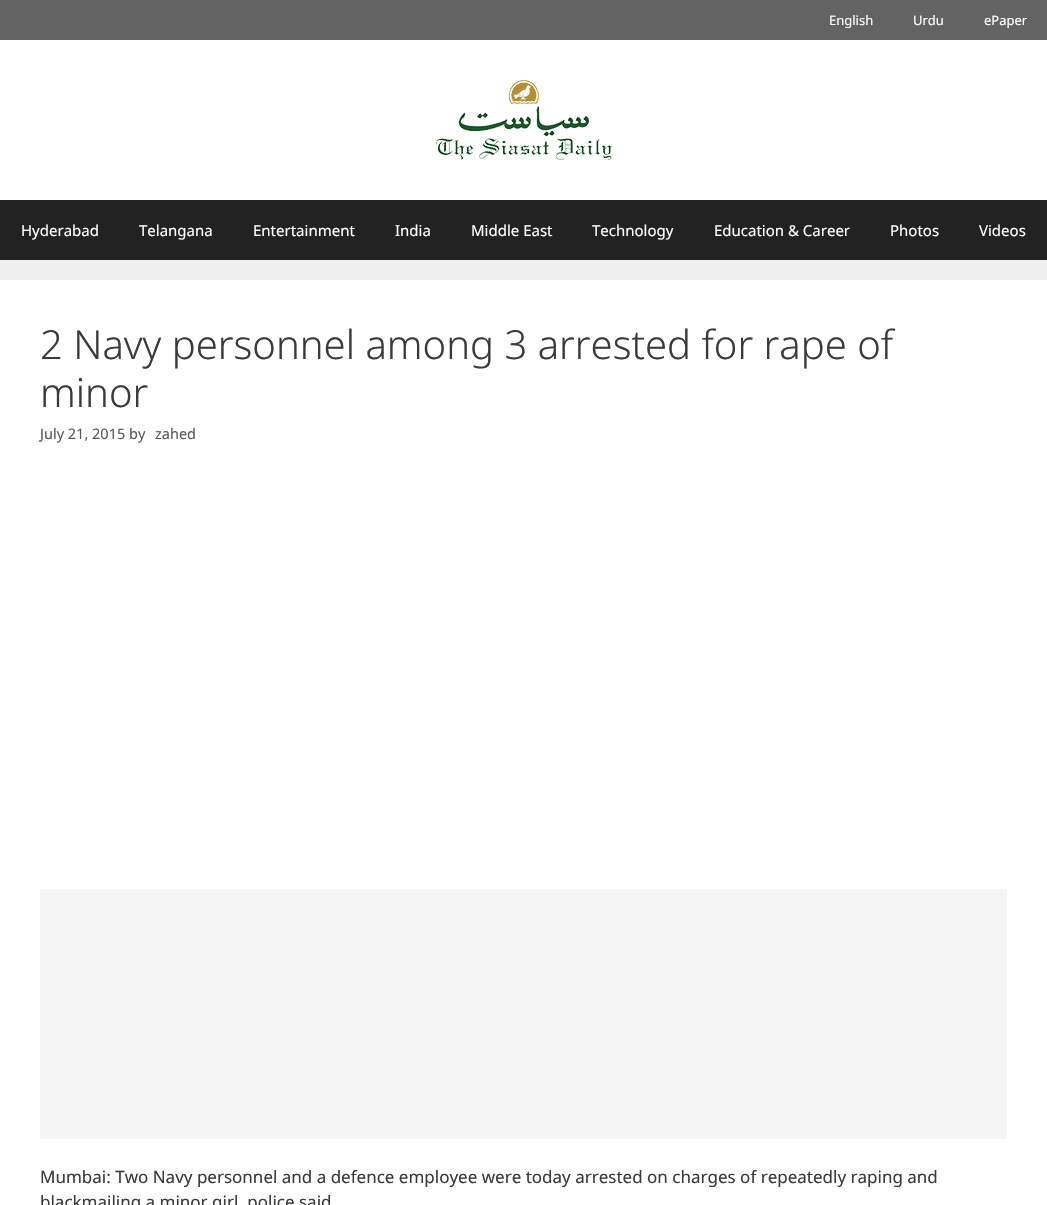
void draw(SkCanvas* canvas) {
    SkPaint paint;
    paint.setAntiAlias(true);
    canvas->clear(0xFFEFEFEF);
    paint.setColor(0xFF636363);
    canvas->drawRect(SkRect::MakeXYWH(0, 0, 1047, 40), paint);
    SkFont font1(fontMgr->matchFamilyStyle("Noto Sans", SkFontStyle::Normal()), 13);
    font1.setSubpixel(true);
    paint.setColor(0xFFFFFFFF);
    canvas->drawString("English", 829, 25, font1, paint);
    canvas->drawString("Urdu", 913, 25, font1, paint);
    canvas->drawString("ePaper", 984, 25, font1, paint);
    canvas->drawRect(SkRect::MakeXYWH(0, 40, 1047, 160), paint);
    canvas->drawImageRect(SkImages::DeferredFromEncodedData(SkData::MakeFromFileName("img1.png")), SkRect::MakeXYWH(436, 80, 176, 80), SkSamplingOptions());
    paint.setColor(0xFF222222);
    canvas->drawRect(SkRect::MakeXYWH(0, 200, 1047, 60), paint);
    SkFont font2(fontMgr->matchFamilyStyle("Noto Sans", SkFontStyle::Normal()), 15);
    font2.setSubpixel(true);
    paint.setColor(0xFFFFFFFF);
    canvas->drawString("Hyderabad", 21, 236, font2, paint);
    canvas->drawString("Telangana", 139, 236, font2, paint);
    canvas->drawString("Entertainment", 253, 236, font2, paint);
    canvas->drawString("India", 395, 236, font2, paint);
    canvas->drawString("Middle East", 471, 236, font2, paint);
    canvas->drawString("Technology", 592, 236, font2, paint);
    canvas->drawString("Education & Career", 714, 236, font2, paint);
    canvas->drawString("Photos", 890, 236, font2, paint);
    canvas->drawString("Videos", 979, 236, font2, paint);
    canvas->drawRect(SkRect::MakeXYWH(0, 280, 1047, 925), paint);
    SkFont font3(fontMgr->matchFamilyStyle("Noto Sans", SkFontStyle(300, SkFontStyle::kNormal_Width, SkFontStyle::kUpright_Slant)), 40);
    font3.setSubpixel(true);
    paint.setColor(0xFF3A3A3A);
    canvas->drawString("2 Navy personnel among 3 arrested for rape of", 40, 359, font3, paint);
    canvas->drawString("minor", 40, 407, font3, paint);
    SkFont font4(fontMgr->matchFamilyStyle("Noto Sans", SkFontStyle::Normal()), 14.5f);
    font4.setSubpixel(true);
    paint.setColor(0xFF595959);
    canvas->drawString("July 21, 2015 by", 40, 439, font4, paint);
    canvas->drawString("zahed", 155, 439, font4, paint);
    paint.setColor(0xFFF5F5F5);
    canvas->drawRect(SkRect::MakeXYWH(40, 889, 967, 250), paint);
    SkFont font5(fontMgr->matchFamilyStyle("Noto Sans", SkFontStyle::Normal()), 17);
    font5.setSubpixel(true);
    paint.setColor(0xFF3A3A3A);
    canvas->drawString("Mumbai: Two Navy personnel and a defence employee were today arrested on charges of repeatedly raping and", 40, 1183, font5, paint);
    canvas->drawString("blackmailing a minor girl, police said", 40, 1208, font5, paint);
}
